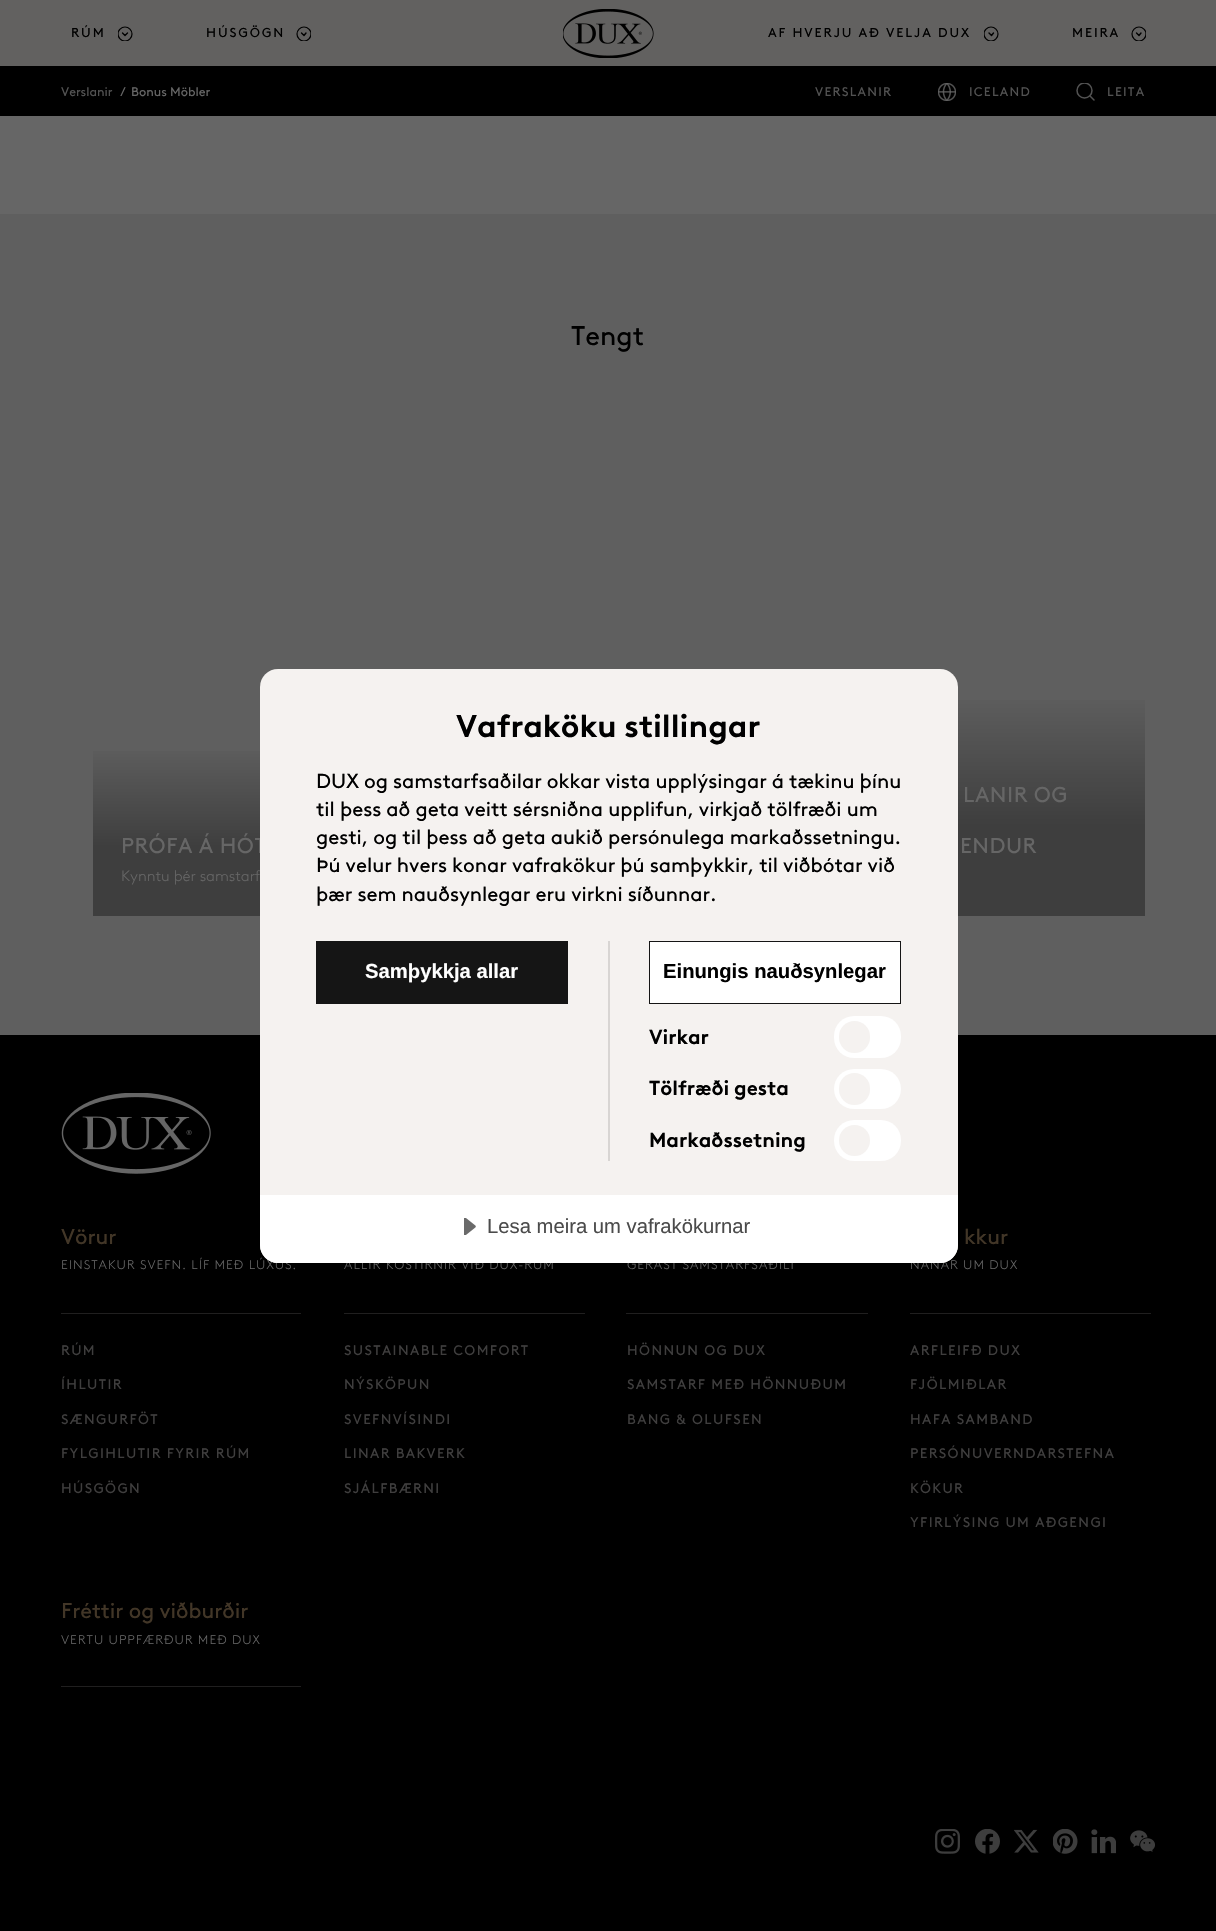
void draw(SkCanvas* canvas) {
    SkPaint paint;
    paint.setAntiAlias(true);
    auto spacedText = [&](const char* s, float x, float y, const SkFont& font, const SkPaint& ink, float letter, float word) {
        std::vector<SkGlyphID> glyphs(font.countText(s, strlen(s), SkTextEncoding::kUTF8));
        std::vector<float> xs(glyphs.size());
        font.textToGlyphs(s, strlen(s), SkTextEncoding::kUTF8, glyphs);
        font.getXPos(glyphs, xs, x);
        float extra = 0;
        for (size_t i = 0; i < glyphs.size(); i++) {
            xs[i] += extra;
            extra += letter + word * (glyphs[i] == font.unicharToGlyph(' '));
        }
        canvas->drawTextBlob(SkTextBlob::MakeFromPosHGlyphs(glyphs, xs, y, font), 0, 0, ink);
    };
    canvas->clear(0xFF666666);
    paint.setColor(0xFF626160);
    canvas->drawRect(SkRect::MakeXYWH(0, 0, 1216, 66), paint);
    canvas->drawImageRect(SkImages::DeferredFromEncodedData(SkData::MakeFromFileName("img1.png")), SkRect::MakeXYWH(563, 9, 91, 49), SkSamplingOptions());
    SkFont font1(fontMgr->matchFamilyStyle("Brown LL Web", SkFontStyle::Normal()), 12.9f);
    font1.setSubpixel(true);
    paint.setColor(0xFF000000);
    spacedText("RÚM", 71, 37, font1, paint, 1.9f, 0);
    canvas->save();
    canvas->clipRect(SkRect::MakeXYWH(118, 26, 15, 15));
    paint.setStyle(SkPaint::kStroke_Style);
    paint.setStrokeWidth(1.2f);
    canvas->drawCircle(125, 34, 7, paint);
    canvas->restore();
    paint.setStrokeWidth(1.4f);
    paint.setStrokeCap(SkPaint::kRound_Cap);
    paint.setStrokeJoin(SkPaint::kRound_Join);
    canvas->drawPath(SkPathBuilder().moveTo(122.5f, 33).lineTo(125, 35.5f).lineTo(127.5f, 33).detach(), paint);
    paint.setStyle(SkPaint::kFill_Style);
    spacedText("HÚSGÖGN", 206, 37, font1, paint, 1.9f, 0);
    canvas->save();
    canvas->clipRect(SkRect::MakeXYWH(296, 26, 15, 15));
    paint.setStyle(SkPaint::kStroke_Style);
    paint.setStrokeWidth(1.2f);
    paint.setStrokeCap(SkPaint::kButt_Cap);
    paint.setStrokeJoin(SkPaint::kMiter_Join);
    canvas->drawCircle(304, 34, 7, paint);
    canvas->restore();
    paint.setStrokeWidth(1.4f);
    paint.setStrokeCap(SkPaint::kRound_Cap);
    paint.setStrokeJoin(SkPaint::kRound_Join);
    canvas->drawPath(SkPathBuilder().moveTo(301.5f, 33).lineTo(304, 35.5f).lineTo(306, 33).detach(), paint);
    paint.setStyle(SkPaint::kFill_Style);
    spacedText("AF HVERJU AÐ VELJA DUX", 768, 37, font1, paint, 1.9f, 0);
    canvas->save();
    canvas->clipRect(SkRect::MakeXYWH(984, 26, 15, 15));
    paint.setStyle(SkPaint::kStroke_Style);
    paint.setStrokeWidth(1.2f);
    paint.setStrokeCap(SkPaint::kButt_Cap);
    paint.setStrokeJoin(SkPaint::kMiter_Join);
    canvas->drawCircle(991, 34, 7, paint);
    canvas->restore();
    paint.setStrokeWidth(1.4f);
    paint.setStrokeCap(SkPaint::kRound_Cap);
    paint.setStrokeJoin(SkPaint::kRound_Join);
    canvas->drawPath(SkPathBuilder().moveTo(989, 33).lineTo(991.5f, 35.5f).lineTo(993.5f, 33).detach(), paint);
    paint.setStyle(SkPaint::kFill_Style);
    spacedText("MEIRA", 1072, 37, font1, paint, 1.9f, 0);
    canvas->save();
    canvas->clipRect(SkRect::MakeXYWH(1131, 26, 15, 15));
    paint.setStyle(SkPaint::kStroke_Style);
    paint.setStrokeWidth(1.2f);
    paint.setStrokeCap(SkPaint::kButt_Cap);
    paint.setStrokeJoin(SkPaint::kMiter_Join);
    canvas->drawCircle(1139, 34, 7, paint);
    canvas->restore();
    paint.setStrokeWidth(1.4f);
    paint.setStrokeCap(SkPaint::kRound_Cap);
    paint.setStrokeJoin(SkPaint::kRound_Join);
    canvas->drawPath(SkPathBuilder().moveTo(1136.5f, 33).lineTo(1139, 35.5f).lineTo(1141, 33).detach(), paint);
    paint.setStyle(SkPaint::kFill_Style);
    canvas->drawRect(SkRect::MakeXYWH(0, 66, 1216, 50), paint);
    SkFont font2(fontMgr->matchFamilyStyle("Brown LL Web", SkFontStyle::Normal()), 12.5f);
    font2.setSubpixel(true);
    paint.setColor(0xFF525252);
    canvas->drawString("Verslanir", 61, 96, font2, paint);
    SkFont font3(fontMgr->matchFamilyStyle("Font", SkFontStyle::Normal()), 12.5f);
    font3.setSubpixel(true);
    paint.setColor(0xFF666666);
    canvas->drawString("/", 120, 96, font3, paint);
    canvas->drawString("Bonus Möbler", 131, 96, font2, paint);
    paint.setColor(0xFF525252);
    spacedText("VERSLANIR", 815, 96, font2, paint, 1.25f, 0);
    canvas->drawImageRect(SkImages::DeferredFromEncodedData(SkData::MakeFromFileName("img2.png")), SkRect::MakeXYWH(938, 83, 18, 18), SkSamplingOptions());
    spacedText("ICELAND", 969, 96, font2, paint, 1.25f, 0);
    canvas->save();
    canvas->clipRect(SkRect::MakeXYWH(1076, 83, 19, 18));
    paint.setStyle(SkPaint::kStroke_Style);
    paint.setStrokeWidth(1.5f);
    paint.setStrokeCap(SkPaint::kButt_Cap);
    paint.setStrokeJoin(SkPaint::kMiter_Join);
    canvas->drawCircle(1084.5f, 90.5f, 7.5f, paint);
    canvas->restore();
    paint.setStrokeCap(SkPaint::kRound_Cap);
    paint.setStrokeJoin(SkPaint::kRound_Join);
    canvas->drawPath(SkPathBuilder().moveTo(1094, 100).lineTo(1090, 96).detach(), paint);
    paint.setStyle(SkPaint::kFill_Style);
    spacedText("LEITA", 1107, 96, font2, paint, 1.25f, 0);
    paint.setColor(0xFF5F5F5F);
    canvas->drawRect(SkRect::MakeXYWH(0, 214, 1216, 821), paint);
    SkFont font4(fontMgr->matchFamilyStyle("Brown LL Web", SkFontStyle::Normal()), 27);
    font4.setSubpixel(true);
    paint.setColor(0xFF000000);
    canvas->drawString("Tengt", 571, 345, font4, paint);
    {
        const SkColor colors[] = {0xFF3E3E3E, 0xFF3E3E3E, 0xFF5F5F5F};
        const float stops[] = {0, 0.4f, 1};
        const SkPoint ends[] = {{261, 916}, {261, 743}};
        paint.setShader(SkGradientShader::MakeLinear(ends, colors, stops, 3, SkTileMode::kClamp));
        paint.setAlpha(255);
    }
    canvas->drawRect(SkRect::MakeXYWH(93, 751, 167, 165), paint);
    SkFont font5(fontMgr->matchFamilyStyle("Brown LL Web", SkFontStyle::Normal()), 21.5f);
    font5.setSubpixel(true);
    paint.setShader(nullptr);
    paint.setColor(0xFF666666);
    spacedText("PRÓFA Á HÓT", 121, 853, font5, paint, 0.5f, 0);
    SkFont font6(fontMgr->matchFamilyStyle("Brown LL Web", SkFontStyle(300, SkFontStyle::kNormal_Width, SkFontStyle::kUpright_Slant)), 15);
    font6.setSubpixel(true);
    canvas->drawString("Kynntu þér samstarf", 121, 881, font6, paint);
    {
        const SkColor colors[] = {0xFF3E3E3E, 0xFF3E3E3E, 0xFF5F5F5F};
        const float stops[] = {0, 0.4f, 1};
        const SkPoint ends[] = {{977, 916}, {977, 690}};
        paint.setShader(SkGradientShader::MakeLinear(ends, colors, stops, 3, SkTileMode::kClamp));
        paint.setAlpha(255);
    }
    canvas->drawRect(SkRect::MakeXYWH(958, 700, 187, 216), paint);
    paint.setShader(nullptr);
    paint.setColor(0xFF666666);
    spacedText("LANIR OG", 963, 802, font5, paint, 0.5f, 0);
    spacedText("ENDUR", 960, 853, font5, paint, 0.5f, 0);
    paint.setColor(0xFF000000);
    canvas->drawRect(SkRect::MakeXYWH(0, 1035, 1216, 896), paint);
    SkFont font7(fontMgr->matchFamilyStyle("Brown LL Web", SkFontStyle(300, SkFontStyle::kNormal_Width, SkFontStyle::kUpright_Slant)), 12.5f);
    font7.setSubpixel(true);
    paint.setColor(0xFF666666);
    spacedText("EINSTAKUR SVEFN. LÍF MEÐ LÚXUS.", 61, 1269, font7, paint, 1, 0);
    spacedText("ALLIR KOSTIRNIR VIÐ DUX-RÚM", 344, 1269, font7, paint, 1, 0);
    spacedText("GERAST SAMSTARFSAÐILI", 627, 1269, font7, paint, 1, 0);
    spacedText("NÁNAR UM DUX", 910, 1269, font7, paint, 1, 0);
    paint.setColor(0xFFF5F2F0);
    canvas->drawRoundRect(SkRect::MakeXYWH(260, 669, 698, 594), 18, 18, paint);
    SkFont font8(fontMgr->matchFamilyStyle("Brown LL Web", SkFontStyle::Bold()), 31.5f);
    font8.setSubpixel(true);
    paint.setColor(0xFF000000);
    canvas->drawString("Vafraköku stillingar", 456, 737, font8, paint);
    SkFont font9(fontMgr->matchFamilyStyle("Brown LL Web", SkFontStyle::Normal()), 20.25f);
    font9.setSubpixel(true);
    canvas->drawString("DUX og samstarfsaðilar okkar vista upplýsingar á tækinu þínu", 316, 788, font9, paint);
    canvas->drawString("til þess að geta veitt sérsniðna upplifun, virkjað tölfræði um", 316, 816, font9, paint);
    canvas->drawString("gesti, og til þess að geta aukið persónulega markaðssetningu.", 316, 844, font9, paint);
    canvas->drawString("Þú velur hvers konar vafrakökur þú samþykkir, til viðbótar við", 316, 872, font9, paint);
    canvas->drawString("þær sem nauðsynlegar eru virkni síðunnar.", 316, 901, font9, paint);
    paint.setColor(0xFFD8D5D3);
    canvas->drawRect(SkRect::MakeXYWH(608, 941, 2, 220), paint);
    paint.setColor(0xFF151515);
    canvas->drawRect(SkRect::MakeXYWH(316, 941, 252, 63), paint);
    SkFont font10(fontMgr->matchFamilyStyle("Liberation Sans", SkFontStyle::Bold()), 20.25f);
    font10.setSubpixel(true);
    paint.setColor(0xFFFFFFFF);
    canvas->drawString("Samþykkja allar", 365, 978, font10, paint);
    canvas->drawRect(SkRect::MakeXYWH(649.5f, 941.5f, 251, 62), paint);
    paint.setStyle(SkPaint::kStroke_Style);
    paint.setStrokeWidth(1);
    paint.setStrokeCap(SkPaint::kButt_Cap);
    paint.setStrokeJoin(SkPaint::kMiter_Join);
    paint.setColor(0xFF151515);
    canvas->drawRect(SkRect::MakeXYWH(649.5f, 941.5f, 251, 62), paint);
    paint.setStyle(SkPaint::kFill_Style);
    paint.setColor(0xFF000000);
    canvas->drawString("Einungis nauðsynlegar", 663, 978, font10, paint);
    SkFont font11(fontMgr->matchFamilyStyle("Brown LL Web", SkFontStyle::Bold()), 20.25f);
    font11.setSubpixel(true);
    canvas->drawString("Virkar", 649, 1044, font11, paint);
    paint.setColor(0xFFFFFFFF);
    canvas->drawRoundRect(SkRect::MakeXYWH(834, 1016, 67, 42), 20, 20, paint);
    paint.setColor(0xFFF5F2F0);
    canvas->drawRoundRect(SkRect::MakeXYWH(839, 1021, 31, 32), 15.5f, 15.5f, paint);
    paint.setColor(0xFF000000);
    canvas->drawString("Tölfræði gesta", 649, 1095, font11, paint);
    paint.setColor(0xFFFFFFFF);
    canvas->drawRoundRect(SkRect::MakeXYWH(834, 1069, 67, 40), 20, 20, paint);
    paint.setColor(0xFFF5F2F0);
    canvas->drawRoundRect(SkRect::MakeXYWH(839, 1073, 31, 32), 15.5f, 15.5f, paint);
    paint.setColor(0xFF000000);
    canvas->drawString("Markaðssetning", 649, 1147, font11, paint);
    paint.setColor(0xFFFFFFFF);
    canvas->drawRoundRect(SkRect::MakeXYWH(834, 1120, 67, 41), 20, 20, paint);
    paint.setColor(0xFFF5F2F0);
    canvas->drawCircle(854.5f, 1140.5f, 15.5f, paint);
    paint.setColor(0xFFFFFFFF);
    canvas->drawPath(SkPathBuilder().moveTo(260, 1195).lineTo(958, 1195).lineTo(958, 1245).cubicTo(958, 1255, 950, 1263, 940, 1263).lineTo(278, 1263).cubicTo(268, 1263, 260, 1255, 260, 1245).close().detach(), paint);
    canvas->drawImageRect(SkImages::DeferredFromEncodedData(SkData::MakeFromFileName("img3.png")), SkRect::MakeXYWH(464, 1218, 12, 17), SkSamplingOptions());
    SkFont font12(fontMgr->matchFamilyStyle("Liberation Sans", SkFontStyle::Normal()), 20.25f);
    font12.setSubpixel(true);
    paint.setColor(0xFF4B4B4B);
    canvas->drawString("Lesa meira um vafrakökurnar", 487, 1233, font12, paint);
    canvas->drawImageRect(SkImages::DeferredFromEncodedData(SkData::MakeFromFileName("img4.png")), SkRect::MakeXYWH(61, 1093, 150, 81), SkSamplingOptions());
    paint.setColor(0xFF201F1F);
    canvas->drawRect(SkRect::MakeXYWH(61, 1313, 240, 1), paint);
    paint.setColor(0xFF423627);
    canvas->drawString("Vörur", 61, 1244, font5, paint);
    SkFont font13(fontMgr->matchFamilyStyle("Brown LL Web", SkFontStyle::Normal()), 13.75f);
    font13.setSubpixel(true);
    paint.setColor(0xFF3F3E3E);
    spacedText("RÚM", 61, 1355, font13, paint, 1.4f, 0);
    spacedText("ÍHLUTIR", 61, 1389, font13, paint, 1.4f, 0);
    spacedText("SÆNGURFÖT", 61, 1424, font13, paint, 1.4f, 0);
    spacedText("FYLGIHLUTIR FYRIR RÚM", 61, 1458, font13, paint, 1.4f, 0);
    spacedText("HÚSGÖGN", 61, 1493, font13, paint, 1.4f, 0);
    paint.setColor(0xFF201F1F);
    canvas->drawRect(SkRect::MakeXYWH(344, 1313, 241, 1), paint);
    paint.setColor(0xFF3F3E3E);
    spacedText("SUSTAINABLE COMFORT", 344, 1355, font13, paint, 1.4f, 0);
    spacedText("NÝSKÖPUN", 344, 1389, font13, paint, 1.4f, 0);
    spacedText("SVEFNVÍSINDI", 344, 1424, font13, paint, 1.4f, 0);
    spacedText("LINAR BAKVERK", 344, 1458, font13, paint, 1.4f, 0);
    spacedText("SJÁLFBÆRNI", 344, 1493, font13, paint, 1.4f, 0);
    paint.setColor(0xFF201F1F);
    canvas->drawRect(SkRect::MakeXYWH(626, 1313, 242, 1), paint);
    paint.setColor(0xFF3F3E3E);
    spacedText("HÖNNUN OG DUX", 627, 1355, font13, paint, 1.4f, 0);
    spacedText("SAMSTARF MEÐ HÖNNUÐUM", 627, 1389, font13, paint, 1.4f, 0);
    spacedText("BANG & OLUFSEN", 627, 1424, font13, paint, 1.4f, 0);
    paint.setColor(0xFF201F1F);
    canvas->drawRect(SkRect::MakeXYWH(910, 1313, 241, 1), paint);
    paint.setColor(0xFF423627);
    canvas->drawString("kkur", 964, 1244, font5, paint);
    paint.setColor(0xFF3F3E3E);
    spacedText("ARFLEIFÐ DUX", 910, 1355, font13, paint, 1.4f, 0);
    spacedText("FJÖLMIÐLAR", 910, 1389, font13, paint, 1.4f, 0);
    spacedText("HAFA SAMBAND", 910, 1424, font13, paint, 1.4f, 0);
    spacedText("PERSÓNUVERNDARSTEFNA", 910, 1458, font13, paint, 1.4f, 0);
    spacedText("KÖKUR", 910, 1493, font13, paint, 1.4f, 0);
    spacedText("YFIRLÝSING UM AÐGENGI", 910, 1527, font13, paint, 1.4f, 0);
    paint.setColor(0xFF201F1F);
    canvas->drawRect(SkRect::MakeXYWH(61, 1686, 240, 1), paint);
    paint.setColor(0xFF423627);
    canvas->drawString("Fréttir og viðburðir", 61, 1618, font5, paint);
    paint.setColor(0xFF666666);
    spacedText("VERTU UPPFÆRÐUR MEÐ DUX", 61, 1644, font7, paint, 1, 0);
    canvas->drawImageRect(SkImages::DeferredFromEncodedData(SkData::MakeFromFileName("img5.png")), SkRect::MakeXYWH(935, 1829, 25, 25), SkSamplingOptions());
    canvas->drawImageRect(SkImages::DeferredFromEncodedData(SkData::MakeFromFileName("img6.png")), SkRect::MakeXYWH(975, 1829, 25, 25), SkSamplingOptions());
    canvas->drawImageRect(SkImages::DeferredFromEncodedData(SkData::MakeFromFileName("img7.png")), SkRect::MakeXYWH(1014, 1829, 25, 24), SkSamplingOptions());
    canvas->drawImageRect(SkImages::DeferredFromEncodedData(SkData::MakeFromFileName("img8.png")), SkRect::MakeXYWH(1053, 1829, 25, 25), SkSamplingOptions());
    canvas->drawImageRect(SkImages::DeferredFromEncodedData(SkData::MakeFromFileName("img9.png")), SkRect::MakeXYWH(1091, 1829, 25, 25), SkSamplingOptions());
    canvas->drawImageRect(SkImages::DeferredFromEncodedData(SkData::MakeFromFileName("img10.png")), SkRect::MakeXYWH(1130, 1830, 25, 22), SkSamplingOptions());
}
